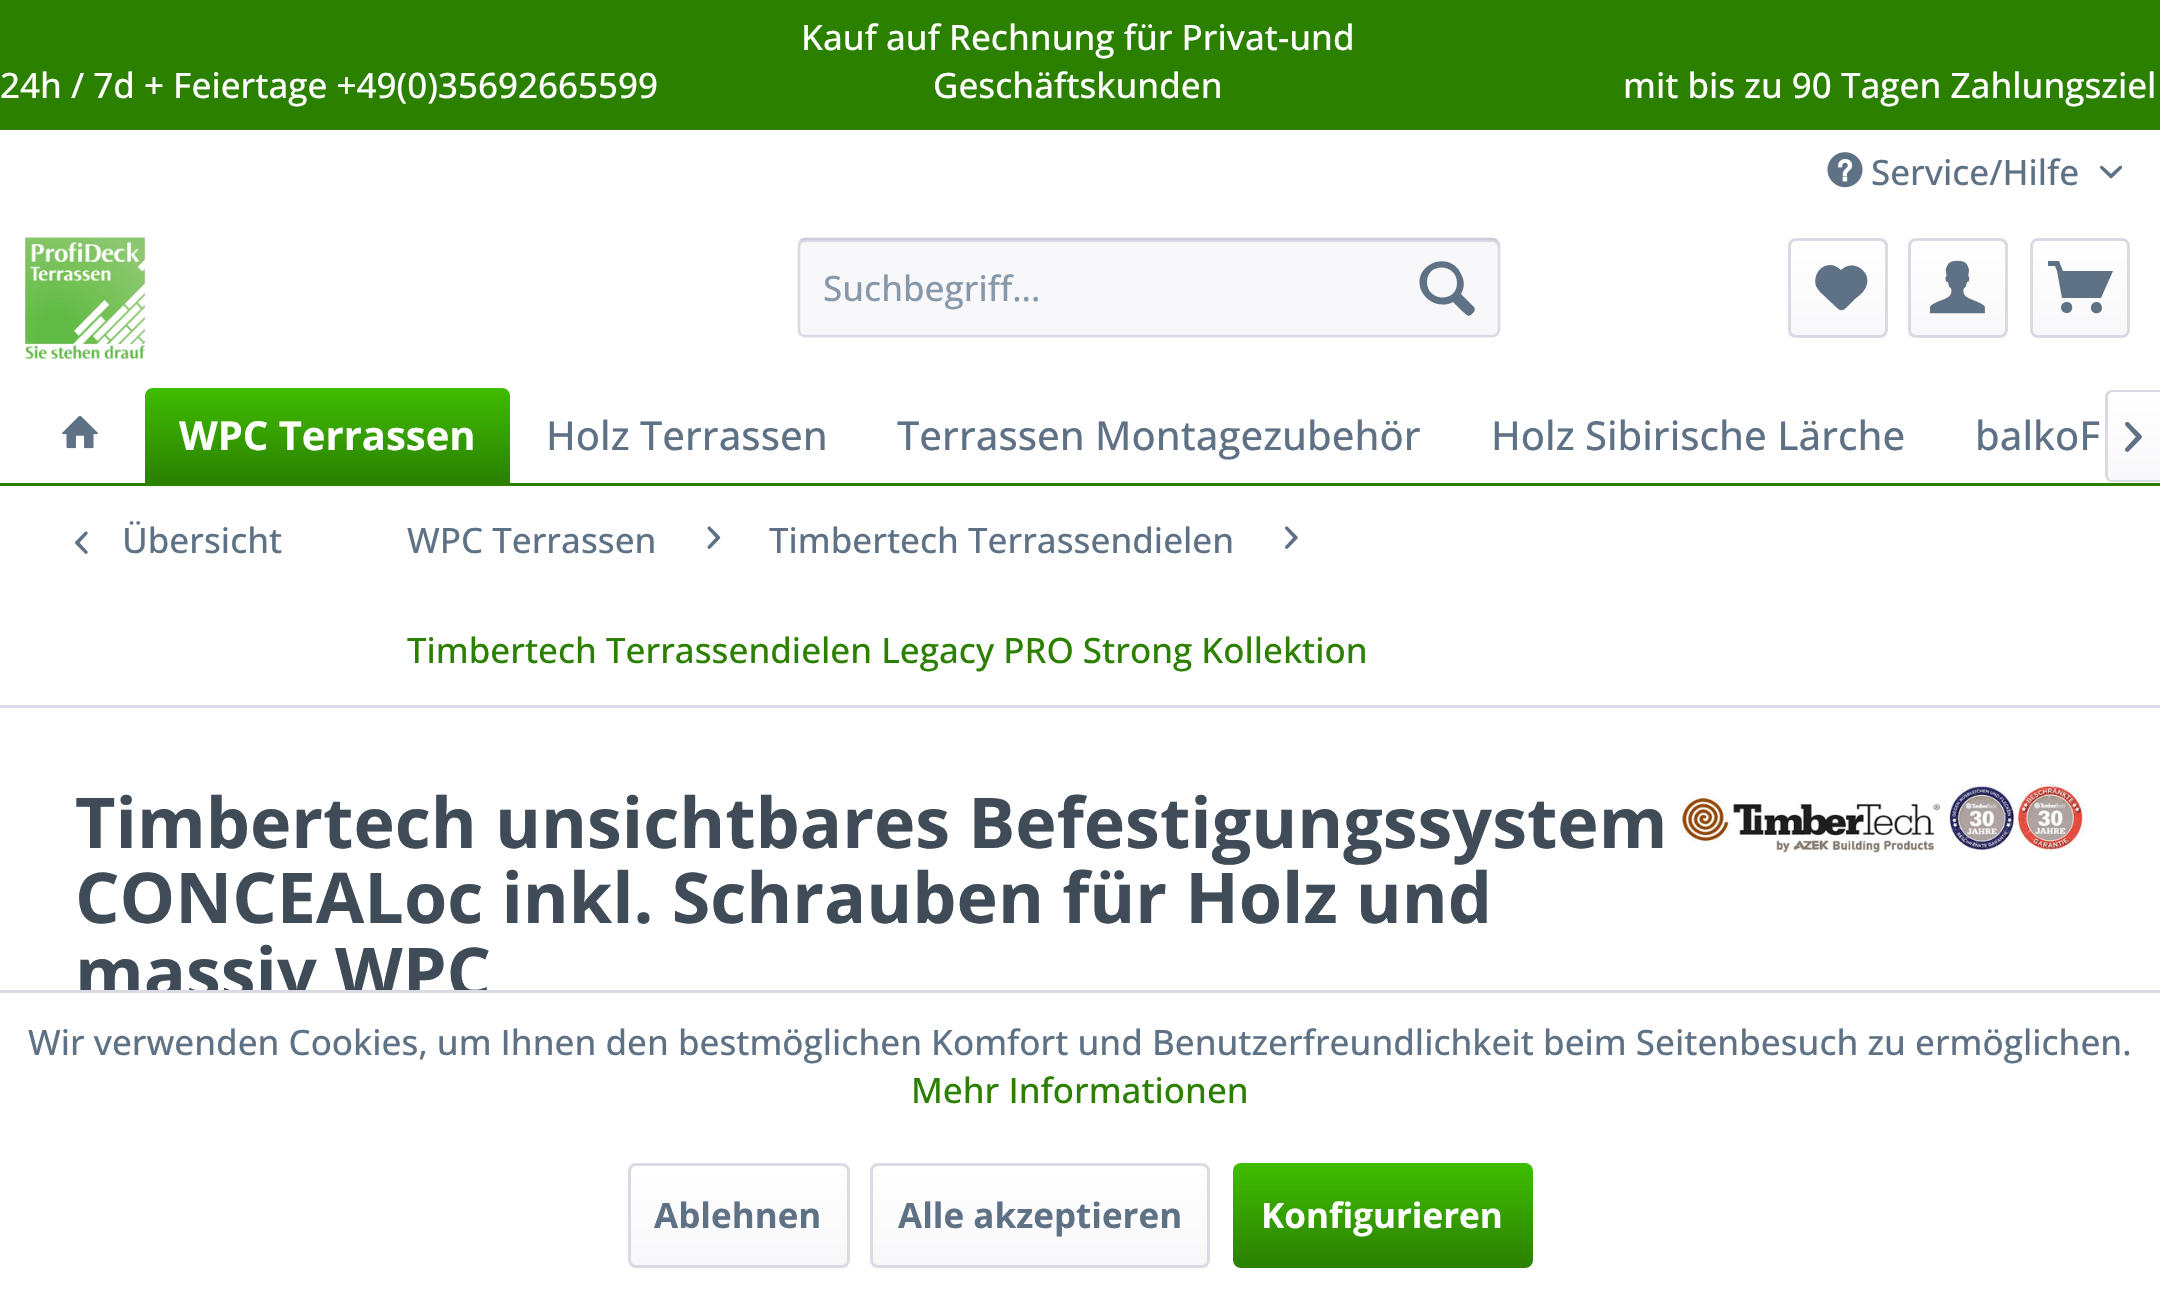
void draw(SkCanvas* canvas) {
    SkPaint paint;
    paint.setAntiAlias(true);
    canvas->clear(0xFFFFFFFF);
    paint.setColor(0xFF2B8000);
    canvas->drawRect(SkRect::MakeXYWH(0, 0, 2160, 130), paint);
    SkFont font1(fontMgr->matchFamilyStyle("Open Sans", SkFontStyle(500, SkFontStyle::kNormal_Width, SkFontStyle::kUpright_Slant)), 35);
    font1.setSubpixel(true);
    paint.setColor(0xFFFFFFFF);
    canvas->drawString("24h / 7d + Feiertage +49(0)35692665599", 0, 98, font1, paint);
    canvas->drawString("Kauf auf Rechnung für Privat-und", 801, 50, font1, paint);
    canvas->drawString("Geschäftskunden", 933, 98, font1, paint);
    canvas->drawString("mit bis zu 90 Tagen Zahlungsziel", 1623, 98, font1, paint);
    canvas->drawImageRect(SkImages::DeferredFromEncodedData(SkData::MakeFromFileName("img1.png")), SkRect::MakeXYWH(1827, 152, 36, 36), SkSamplingOptions());
    paint.setColor(0xFF5F7285);
    canvas->drawString("Service/Hilfe", 1871, 185, font1, paint);
    canvas->drawImageRect(SkImages::DeferredFromEncodedData(SkData::MakeFromFileName("img2.png")), SkRect::MakeXYWH(2100, 165, 23, 14), SkSamplingOptions());
    canvas->drawImageRect(SkImages::DeferredFromEncodedData(SkData::MakeFromFileName("img3.png")), SkRect::MakeXYWH(25, 237, 120, 122), SkSamplingOptions());
    paint.setColor(0xFFF8F8FA);
    canvas->drawRoundRect(SkRect::MakeXYWH(798, 238, 702, 100), 8, 8, paint);
    paint.setColor(0xFFDADAE5);
    canvas->drawPath(SkPathBuilder().moveTo(805, 242).lineTo(1492, 242).cubicTo(1495, 242, 1498, 245, 1498, 248).lineTo(1498, 245).cubicTo(1498, 242, 1496, 240, 1493, 240).lineTo(805, 240).cubicTo(802, 240, 800, 242, 800, 245).lineTo(800, 248).cubicTo(800, 245, 802, 242, 805, 242).close().detach(), paint);
    paint.setStyle(SkPaint::kStroke_Style);
    paint.setStrokeWidth(2.5f);
    paint.setColor(0xFFCBCBDB);
    canvas->drawPath(SkPathBuilder().moveTo(800.5f, 240.5f).cubicTo(802, 239.5f, 803.5f, 239, 805, 239).lineTo(1492.5f, 239).cubicTo(1494, 239, 1495.5f, 239.5f, 1497, 240.5f).detach(), paint);
    paint.setColor(0xFFDADAE5);
    canvas->drawPath(SkPathBuilder().moveTo(1497, 240.5f).cubicTo(1498, 242, 1499, 243.5f, 1499, 245).lineTo(1499, 330).cubicTo(1499, 331.5f, 1498, 333, 1497, 334.5f).cubicTo(1495.5f, 335.5f, 1494, 336, 1492.5f, 336).lineTo(805, 336).cubicTo(803.5f, 336, 802, 335.5f, 800.5f, 334.5f).cubicTo(799.5f, 333, 799, 331.5f, 799, 330).lineTo(799, 245).cubicTo(799, 243.5f, 799.5f, 242, 800.5f, 240.5f).detach(), paint);
    paint.setStyle(SkPaint::kFill_Style);
    paint.setColor(0xFF8798A9);
    canvas->drawString("Suchbegriff...", 823, 301, font1, paint);
    paint.setColor(0xFF5F7285);
    canvas->drawPath(SkPathBuilder().moveTo(1474, 307).lineTo(1461, 294).cubicTo(1464, 289, 1465, 282, 1462, 276).cubicTo(1451, 247, 1409, 265, 1422, 292).cubicTo(1428, 303, 1442, 308, 1453, 302).lineTo(1462, 311).cubicTo(1466, 314, 1468, 318, 1472, 314).cubicTo(1474, 312, 1476, 310, 1474, 307).close().moveTo(1427, 282).cubicTo(1427, 262, 1457, 263, 1457, 283).cubicTo(1457, 303, 1427, 302, 1427, 282).close().detach(), paint);
    {
        const SkColor colors[] = {0xFFFFFFFF, 0xFFF8F8FA};
        const float stops[] = {0, 1};
        const SkPoint ends[] = {{1838, 240}, {1838, 335}};
        paint.setShader(SkGradientShader::MakeLinear(ends, colors, stops, 2, SkTileMode::kClamp));
        paint.setAlpha(255);
    }
    canvas->drawRoundRect(SkRect::MakeXYWH(1790, 240, 95, 95), 5, 5, paint);
    paint.setStyle(SkPaint::kStroke_Style);
    paint.setStrokeWidth(3);
    paint.setShader(nullptr);
    paint.setColor(0xFFDADAE5);
    canvas->drawRoundRect(SkRect::MakeXYWH(1789.5f, 239.5f, 97, 97), 6.5f, 6.5f, paint);
    paint.setStyle(SkPaint::kFill_Style);
    paint.setColor(0xFF5F7285);
    canvas->drawPath(SkPathBuilder().moveTo(1830, 265).cubicTo(1820, 265, 1813, 276, 1816, 286).cubicTo(1816, 287, 1820, 292, 1820, 292).lineTo(1835, 306).cubicTo(1840, 311, 1842, 312, 1847, 307).lineTo(1855, 299).cubicTo(1859, 296, 1864, 292, 1866, 287).cubicTo(1873, 272, 1853, 258, 1841, 270).cubicTo(1838, 267, 1834, 265, 1830, 265).close().detach(), paint);
    {
        const SkColor colors[] = {0xFFFFFFFF, 0xFFF8F8FA};
        const float stops[] = {0, 1};
        const SkPoint ends[] = {{1958, 240}, {1958, 335}};
        paint.setShader(SkGradientShader::MakeLinear(ends, colors, stops, 2, SkTileMode::kClamp));
        paint.setAlpha(255);
    }
    canvas->drawRoundRect(SkRect::MakeXYWH(1910, 240, 95, 95), 5, 5, paint);
    paint.setStyle(SkPaint::kStroke_Style);
    paint.setShader(nullptr);
    paint.setColor(0xFFDADAE5);
    canvas->drawRoundRect(SkRect::MakeXYWH(1909.5f, 239.5f, 97, 97), 6.5f, 6.5f, paint);
    canvas->drawImageRect(SkImages::DeferredFromEncodedData(SkData::MakeFromFileName("img4.png")), SkRect::MakeXYWH(1930, 260, 55, 54), SkSamplingOptions());
    paint.setStyle(SkPaint::kFill_Style);
    {
        const SkColor colors[] = {0xFFFFFFFF, 0xFFF8F8FA};
        const float stops[] = {0, 1};
        const SkPoint ends[] = {{2080, 240}, {2080, 335}};
        paint.setShader(SkGradientShader::MakeLinear(ends, colors, stops, 2, SkTileMode::kClamp));
        paint.setAlpha(255);
    }
    canvas->drawRoundRect(SkRect::MakeXYWH(2033, 240, 95, 95), 5, 5, paint);
    paint.setStyle(SkPaint::kStroke_Style);
    paint.setShader(nullptr);
    paint.setColor(0xFFDADAE5);
    canvas->drawRoundRect(SkRect::MakeXYWH(2031.5f, 239.5f, 97, 97), 6.5f, 6.5f, paint);
    paint.setStyle(SkPaint::kFill_Style);
    paint.setColor(0xFF5F7285);
    canvas->drawPath(SkPathBuilder().moveTo(2062, 298).lineTo(2101, 298).lineTo(2113, 271).lineTo(2063, 271).lineTo(2059, 261).lineTo(2048, 261).lineTo(2048, 266).lineTo(2055, 266).lineTo(2057, 271).close().moveTo(2067, 302).cubicTo(2059, 302, 2059, 313, 2067, 313).cubicTo(2074, 313, 2074, 302, 2067, 302).close().moveTo(2102, 308).cubicTo(2102, 315, 2091, 315, 2091, 308).cubicTo(2091, 300, 2102, 300, 2102, 308).close().detach(), paint);
    paint.setColor(0xFF2B8000);
    canvas->drawRect(SkRect::MakeXYWH(0, 483, 2160, 3), paint);
    canvas->drawImageRect(SkImages::DeferredFromEncodedData(SkData::MakeFromFileName("img5.png")), SkRect::MakeXYWH(62, 416, 36, 33), SkSamplingOptions());
    {
        const SkColor colors[] = {0xFF40BD00, 0xFF2B8000};
        const float stops[] = {0, 1};
        const SkPoint ends[] = {{328, 388}, {328, 483}};
        paint.setShader(SkGradientShader::MakeLinear(ends, colors, stops, 2, SkTileMode::kClamp));
        paint.setAlpha(255);
    }
    canvas->drawPath(SkPathBuilder().moveTo(153, 388).lineTo(502, 388).cubicTo(506.5f, 388, 510, 391.5f, 510, 396).lineTo(510, 483).lineTo(145, 483).lineTo(145, 396).cubicTo(145, 391.5f, 148.5f, 388, 153, 388).close().detach(), paint);
    SkFont font2(fontMgr->matchFamilyStyle("Open Sans", SkFontStyle::Bold()), 40);
    font2.setSubpixel(true);
    paint.setShader(nullptr);
    paint.setColor(0xFFFFFFFF);
    canvas->drawString("WPC Terrassen", 179, 450, font2, paint);
    SkFont font3(fontMgr->matchFamilyStyle("Open Sans", SkFontStyle(500, SkFontStyle::kNormal_Width, SkFontStyle::kUpright_Slant)), 40);
    font3.setSubpixel(true);
    paint.setColor(0xFF5F7285);
    canvas->drawString("Holz Terrassen", 546, 450, font3, paint);
    canvas->drawString("Terrassen Montagezubehör", 897, 450, font3, paint);
    canvas->drawString("Holz Sibirische Lärche", 1491, 450, font3, paint);
    canvas->drawString("balkoF", 1975, 450, font3, paint);
    {
        const SkColor colors[] = {0xFFFFFFFF, 0xFFF8F8FA};
        const float stops[] = {0, 1};
        const SkPoint ends[] = {{2134, 393}, {2134, 480}};
        paint.setShader(SkGradientShader::MakeLinear(ends, colors, stops, 2, SkTileMode::kClamp));
        paint.setAlpha(255);
    }
    canvas->drawPath(SkPathBuilder().moveTo(2113, 393).lineTo(2160, 393).lineTo(2160, 480).lineTo(2113, 480).cubicTo(2110, 480, 2108, 478, 2108, 475).lineTo(2108, 398).cubicTo(2108, 395, 2110, 393, 2113, 393).close().detach(), paint);
    paint.setShader(nullptr);
    paint.setColor(0xFFDADAE5);
    canvas->drawPath(SkPathBuilder(SkPathFillType::kEvenOdd).moveTo(2112, 390).lineTo(2160, 390).lineTo(2160, 482).lineTo(2112, 482).cubicTo(2108, 482, 2105, 479, 2105, 475).lineTo(2105, 398).cubicTo(2105, 393, 2108, 390, 2112, 390).close().moveTo(2112, 392).lineTo(2160, 392).lineTo(2160, 480).lineTo(2112, 480).cubicTo(2110, 480, 2108, 478, 2108, 475).lineTo(2108, 398).cubicTo(2108, 395, 2110, 392, 2112, 392).close().detach(), paint);
    canvas->drawImageRect(SkImages::DeferredFromEncodedData(SkData::MakeFromFileName("img6.png")), SkRect::MakeXYWH(2125, 421, 17, 31), SkSamplingOptions());
    canvas->drawRect(SkRect::MakeXYWH(0, 705, 2160, 3), paint);
    canvas->drawImageRect(SkImages::DeferredFromEncodedData(SkData::MakeFromFileName("img7.png")), SkRect::MakeXYWH(75, 531, 13, 23), SkSamplingOptions());
    paint.setColor(0xFF5F7285);
    canvas->drawString("Übersicht", 122, 553, font1, paint);
    canvas->drawString("WPC Terrassen", 407, 553, font1, paint);
    canvas->drawImageRect(SkImages::DeferredFromEncodedData(SkData::MakeFromFileName("img8.png")), SkRect::MakeXYWH(707, 526, 14, 23), SkSamplingOptions());
    canvas->drawString("Timbertech Terrassendielen", 769, 553, font1, paint);
    canvas->drawImageRect(SkImages::DeferredFromEncodedData(SkData::MakeFromFileName("img9.png")), SkRect::MakeXYWH(1285, 526, 13, 23), SkSamplingOptions());
    paint.setColor(0xFF2B8000);
    canvas->drawString("Timbertech Terrassendielen Legacy PRO Strong Kollektion", 407, 663, font1, paint);
    SkFont font4(fontMgr->matchFamilyStyle("Open Sans", SkFontStyle::Bold()), 70);
    font4.setSubpixel(true);
    paint.setColor(0xFF3F4C58);
    canvas->drawString("Timbertech unsichtbares Befestigungssystem", 75, 848, font4, paint);
    canvas->drawString("CONCEALoc inkl. Schrauben für Holz und", 75, 923, font4, paint);
    canvas->drawString("massiv WPC", 75, 998, font4, paint);
    canvas->drawImageRect(SkImages::DeferredFromEncodedData(SkData::MakeFromFileName("img10.png")), SkRect::MakeXYWH(1682, 782, 403, 71), SkSamplingOptions());
    paint.setColor(0xFFFFFFFF);
    canvas->drawRect(SkRect::MakeXYWH(80, 993, 407, 6), paint);
    paint.setColor(0xFFDADAE5);
    canvas->drawRect(SkRect::MakeXYWH(0, 990, 2160, 3), paint);
    paint.setColor(0xFF5F7285);
    canvas->drawString("Wir verwenden Cookies, um Ihnen den bestmöglichen Komfort und Benutzerfreundlichkeit beim Seitenbesuch zu ermöglichen.", 28, 1055, font1, paint);
    paint.setColor(0xFF2B8000);
    canvas->drawString("Mehr Informationen", 911, 1103, font1, paint);
    {
        const SkColor colors[] = {0xFFFFFFFF, 0xFFF8F8FA};
        const float stops[] = {0, 1};
        const SkPoint ends[] = {{739, 1165}, {739, 1265}};
        paint.setShader(SkGradientShader::MakeLinear(ends, colors, stops, 2, SkTileMode::kClamp));
        paint.setAlpha(255);
    }
    canvas->drawRoundRect(SkRect::MakeXYWH(630, 1165, 218, 100), 5, 5, paint);
    paint.setStyle(SkPaint::kStroke_Style);
    paint.setShader(nullptr);
    paint.setColor(0xFFDADAE5);
    canvas->drawRoundRect(SkRect::MakeXYWH(629.5f, 1164.5f, 219, 102), 6.5f, 6.5f, paint);
    SkFont font5(fontMgr->matchFamilyStyle("Open Sans", SkFontStyle::Bold()), 35);
    font5.setSubpixel(true);
    paint.setStyle(SkPaint::kFill_Style);
    paint.setColor(0xFF5F7285);
    canvas->drawString("Ablehnen", 654, 1228, font5, paint);
    {
        const SkColor colors[] = {0xFFFFFFFF, 0xFFF8F8FA};
        const float stops[] = {0, 1};
        const SkPoint ends[] = {{1040, 1165}, {1040, 1265}};
        paint.setShader(SkGradientShader::MakeLinear(ends, colors, stops, 2, SkTileMode::kClamp));
        paint.setAlpha(255);
    }
    canvas->drawRoundRect(SkRect::MakeXYWH(873, 1165, 335, 100), 5, 5, paint);
    paint.setStyle(SkPaint::kStroke_Style);
    paint.setShader(nullptr);
    paint.setColor(0xFFDADAE5);
    canvas->drawRoundRect(SkRect::MakeXYWH(871.5f, 1164.5f, 337, 102), 6.5f, 6.5f, paint);
    paint.setStyle(SkPaint::kFill_Style);
    paint.setColor(0xFF5F7285);
    canvas->drawString("Alle akzeptieren", 898, 1228, font5, paint);
    {
        const SkColor colors[] = {0xFF40BD00, 0xFF2B8000};
        const float stops[] = {0, 1};
        const SkPoint ends[] = {{1383, 1163}, {1383, 1268}};
        paint.setShader(SkGradientShader::MakeLinear(ends, colors, stops, 2, SkTileMode::kClamp));
        paint.setAlpha(255);
    }
    canvas->drawRoundRect(SkRect::MakeXYWH(1233, 1163, 300, 105), 8, 8, paint);
    paint.setShader(nullptr);
    paint.setColor(0xFFFFFFFF);
    canvas->drawString("Konfigurieren", 1261, 1228, font5, paint);
}
